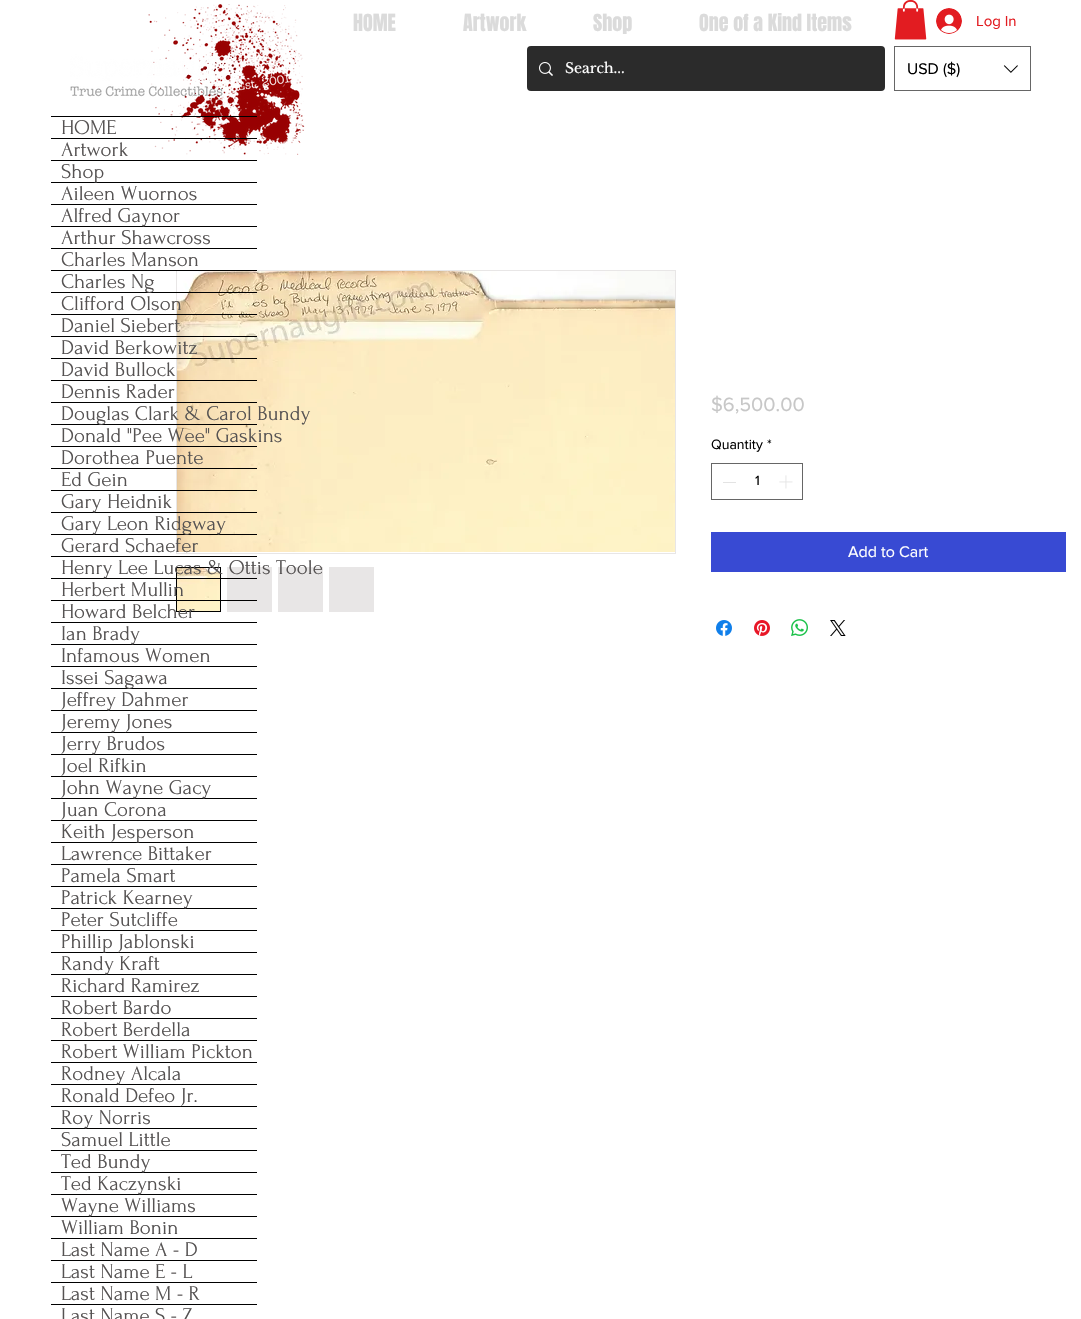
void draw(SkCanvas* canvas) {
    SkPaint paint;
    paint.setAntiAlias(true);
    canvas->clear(0xFFFFFFFF);
    canvas->drawImageRect(SkImages::DeferredFromEncodedData(SkData::MakeFromFileName("img1.png")), SkRect::MakeXYWH(70, 4, 235, 151), SkSamplingOptions());
    SkFont font1(fontMgr->matchFamilyStyle("Anton", SkFontStyle::Normal()), 20);
    font1.setSubpixel(true);
    paint.setColor(0xFFDBDBDB);
    canvas->drawString("HOME", 353, 31, font1, paint);
    canvas->drawString("Artwork", 463, 31, font1, paint);
    canvas->drawString("Shop", 593, 31, font1, paint);
    canvas->drawString("One of a Kind Items", 699, 31, font1, paint);
    canvas->drawImageRect(SkImages::DeferredFromEncodedData(SkData::MakeFromFileName("img2.png")), SkRect::MakeXYWH(894, 0, 33, 40), SkSamplingOptions());
    canvas->drawImageRect(SkImages::DeferredFromEncodedData(SkData::MakeFromFileName("img3.png")), SkRect::MakeXYWH(936, 8, 26, 26), SkSamplingOptions());
    SkFont font2(fontMgr->matchFamilyStyle("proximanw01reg", SkFontStyle::Normal()), 15);
    font2.setSubpixel(true);
    paint.setColor(0xFFE21C21);
    canvas->drawString("Log In", 976, 26, font2, paint);
    paint.setColor(0xFF2B2B2B);
    canvas->drawRoundRect(SkRect::MakeXYWH(527, 46, 358, 45), 4, 4, paint);
    canvas->drawImageRect(SkImages::DeferredFromEncodedData(SkData::MakeFromFileName("img4.png")), SkRect::MakeXYWH(539, 62, 14, 14), SkSamplingOptions());
    SkFont font3(fontMgr->matchFamilyStyle("Libre Baskerville", SkFontStyle::Normal()), 14);
    font3.setSubpixel(true);
    paint.setColor(0xFFFFFFFF);
    canvas->drawString("Search...", 565, 73, font3, paint);
    paint.setStyle(SkPaint::kStroke_Style);
    paint.setStrokeWidth(1);
    paint.setColor(0xFF666666);
    canvas->drawRect(SkRect::MakeXYWH(894.5f, 46.5f, 136, 44), paint);
    SkFont font4(fontMgr->matchFamilyStyle("proximanw01reg", SkFontStyle::Normal()), 16);
    font4.setSubpixel(true);
    paint.setStyle(SkPaint::kFill_Style);
    paint.setColor(0xFF000000);
    canvas->drawString("USD ($)", 907, 74, font4, paint);
    canvas->drawImageRect(SkImages::DeferredFromEncodedData(SkData::MakeFromFileName("img5.png")), SkRect::MakeXYWH(1003, 65, 15, 8), SkSamplingOptions());
    canvas->drawRect(SkRect::MakeXYWH(51, 116, 206, 1), paint);
    canvas->drawRect(SkRect::MakeXYWH(51, 138, 206, 1), paint);
    SkFont font5(fontMgr->matchFamilyStyle("Forum", SkFontStyle::Normal()), 21);
    font5.setSubpixel(true);
    paint.setColor(0xFF555252);
    canvas->drawString("HOME", 61, 134, font5, paint);
    paint.setColor(0xFF000000);
    canvas->drawRect(SkRect::MakeXYWH(51, 160, 206, 1), paint);
    paint.setColor(0xFF555252);
    canvas->drawString("Artwork", 61, 156, font5, paint);
    paint.setColor(0xFF000000);
    canvas->drawRect(SkRect::MakeXYWH(51, 182, 206, 1), paint);
    paint.setColor(0xFF555252);
    canvas->drawString("Shop", 61, 178, font5, paint);
    paint.setColor(0xFF000000);
    canvas->drawRect(SkRect::MakeXYWH(51, 204, 206, 1), paint);
    paint.setColor(0xFF555252);
    canvas->drawString("Aileen Wuornos", 61, 200, font5, paint);
    paint.setColor(0xFF000000);
    canvas->drawRect(SkRect::MakeXYWH(51, 226, 206, 1), paint);
    paint.setColor(0xFF555252);
    canvas->drawString("Alfred Gaynor", 61, 222, font5, paint);
    paint.setColor(0xFF000000);
    canvas->drawRect(SkRect::MakeXYWH(51, 248, 206, 1), paint);
    paint.setColor(0xFF555252);
    canvas->drawString("Arthur Shawcross", 61, 244, font5, paint);
    paint.setStyle(SkPaint::kStroke_Style);
    paint.setColor(0xFFE8E6E6);
    canvas->drawRect(SkRect::MakeXYWH(176.5f, 270.5f, 499, 283), paint);
    paint.setStyle(SkPaint::kFill_Style);
    paint.setColor(0xFF000000);
    canvas->drawRect(SkRect::MakeXYWH(51, 270, 206, 1), paint);
    paint.setColor(0xFF555252);
    canvas->drawString("Charles Manson", 61, 266, font5, paint);
    canvas->drawImageRect(SkImages::DeferredFromEncodedData(SkData::MakeFromFileName("img6.png")), SkRect::MakeXYWH(177, 271, 498, 281), SkSamplingOptions());
    paint.setColor(0xFF000000);
    canvas->drawRect(SkRect::MakeXYWH(51, 292, 206, 1), paint);
    paint.setColor(0xFF555252);
    canvas->drawString("Charles Ng", 61, 288, font5, paint);
    paint.setColor(0xFF000000);
    canvas->drawRect(SkRect::MakeXYWH(51, 314, 206, 1), paint);
    paint.setColor(0xFF555252);
    canvas->drawString("Clifford Olson", 61, 310, font5, paint);
    paint.setColor(0xFF000000);
    canvas->drawRect(SkRect::MakeXYWH(51, 336, 206, 1), paint);
    paint.setColor(0xFF555252);
    canvas->drawString("Daniel Siebert", 61, 332, font5, paint);
    paint.setColor(0xFF000000);
    canvas->drawRect(SkRect::MakeXYWH(51, 358, 206, 1), paint);
    paint.setColor(0xFF555252);
    canvas->drawString("David Berkowitz", 61, 354, font5, paint);
    paint.setColor(0xFF000000);
    canvas->drawRect(SkRect::MakeXYWH(51, 380, 206, 1), paint);
    paint.setColor(0xFF555252);
    canvas->drawString("David Bullock", 61, 376, font5, paint);
    paint.setColor(0xFF000000);
    canvas->drawRect(SkRect::MakeXYWH(51, 402, 206, 1), paint);
    paint.setColor(0xFF555252);
    canvas->drawString("Dennis Rader", 61, 398, font5, paint);
    paint.setColor(0xFF000000);
    canvas->drawRect(SkRect::MakeXYWH(51, 424, 206, 1), paint);
    paint.setColor(0xFF555252);
    canvas->drawString("Douglas Clark & Carol Bundy", 61, 420, font5, paint);
    paint.setColor(0xFF000000);
    canvas->drawRect(SkRect::MakeXYWH(51, 446, 206, 1), paint);
    paint.setColor(0xFF555252);
    canvas->drawString("Donald \"Pee Wee\" Gaskins", 61, 442, font5, paint);
    paint.setColor(0xFF000000);
    canvas->drawRect(SkRect::MakeXYWH(51, 468, 206, 1), paint);
    paint.setColor(0xFF555252);
    canvas->drawString("Dorothea Puente", 61, 464, font5, paint);
    paint.setColor(0xFF000000);
    canvas->drawRect(SkRect::MakeXYWH(51, 490, 206, 1), paint);
    paint.setColor(0xFF555252);
    canvas->drawString("Ed Gein", 61, 486, font5, paint);
    paint.setColor(0xFF000000);
    canvas->drawRect(SkRect::MakeXYWH(51, 512, 206, 1), paint);
    paint.setColor(0xFF555252);
    canvas->drawString("Gary Heidnik", 61, 508, font5, paint);
    paint.setColor(0xFF000000);
    canvas->drawRect(SkRect::MakeXYWH(51, 534, 206, 1), paint);
    paint.setColor(0xFF555252);
    canvas->drawString("Gary Leon Ridgway", 61, 530, font5, paint);
    paint.setColor(0xFF000000);
    canvas->drawRect(SkRect::MakeXYWH(51, 556, 206, 1), paint);
    paint.setColor(0xFF555252);
    canvas->drawString("Gerard Schaefer", 61, 552, font5, paint);
    paint.setStyle(SkPaint::kStroke_Style);
    paint.setColor(0xFF000000);
    canvas->drawRect(SkRect::MakeXYWH(176.5f, 567.5f, 44, 44), paint);
    canvas->drawImageRect(SkImages::DeferredFromEncodedData(SkData::MakeFromFileName("img7.png")), SkRect::MakeXYWH(177, 568, 43, 43), SkSamplingOptions());
    paint.setStyle(SkPaint::kFill_Style);
    paint.setColor(0xFFE8E6E6);
    canvas->drawRect(SkRect::MakeXYWH(227, 567, 45, 45), paint);
    paint.setColor(0xFF000000);
    canvas->drawRect(SkRect::MakeXYWH(51, 578, 206, 1), paint);
    paint.setColor(0xFFE8E6E6);
    canvas->drawRect(SkRect::MakeXYWH(278, 567, 45, 45), paint);
    paint.setColor(0xFF555252);
    canvas->drawString("Henry Lee Lucas & Ottis Toole", 61, 574, font5, paint);
    paint.setColor(0xFF000000);
    canvas->drawRect(SkRect::MakeXYWH(51, 600, 206, 1), paint);
    paint.setColor(0xFF555252);
    canvas->drawString("Herbert Mullin", 61, 596, font5, paint);
    paint.setColor(0xFF000000);
    canvas->drawRect(SkRect::MakeXYWH(51, 622, 206, 1), paint);
    paint.setColor(0xFF555252);
    canvas->drawString("Howard Belcher", 61, 618, font5, paint);
    paint.setColor(0xFF000000);
    canvas->drawRect(SkRect::MakeXYWH(51, 644, 206, 1), paint);
    paint.setColor(0xFF555252);
    canvas->drawString("Ian Brady", 61, 640, font5, paint);
    paint.setColor(0xFF000000);
    canvas->drawRect(SkRect::MakeXYWH(51, 666, 206, 1), paint);
    paint.setColor(0xFF555252);
    canvas->drawString("Infamous Women", 61, 662, font5, paint);
    paint.setColor(0xFF000000);
    canvas->drawRect(SkRect::MakeXYWH(51, 688, 206, 1), paint);
    paint.setColor(0xFF555252);
    canvas->drawString("Issei Sagawa", 61, 684, font5, paint);
    paint.setColor(0xFF000000);
    canvas->drawRect(SkRect::MakeXYWH(51, 710, 206, 1), paint);
    paint.setColor(0xFF555252);
    canvas->drawString("Jeffrey Dahmer", 61, 706, font5, paint);
    paint.setColor(0xFF000000);
    canvas->drawRect(SkRect::MakeXYWH(51, 732, 206, 1), paint);
    paint.setColor(0xFF555252);
    canvas->drawString("Jeremy Jones", 61, 728, font5, paint);
    paint.setColor(0xFF000000);
    canvas->drawRect(SkRect::MakeXYWH(51, 754, 206, 1), paint);
    paint.setColor(0xFF555252);
    canvas->drawString("Jerry Brudos", 61, 750, font5, paint);
    paint.setColor(0xFF000000);
    canvas->drawRect(SkRect::MakeXYWH(51, 776, 206, 1), paint);
    paint.setColor(0xFF555252);
    canvas->drawString("Joel Rifkin", 61, 772, font5, paint);
    paint.setColor(0xFF000000);
    canvas->drawRect(SkRect::MakeXYWH(51, 798, 206, 1), paint);
    paint.setColor(0xFF555252);
    canvas->drawString("John Wayne Gacy", 61, 794, font5, paint);
    paint.setColor(0xFF000000);
    canvas->drawRect(SkRect::MakeXYWH(51, 820, 206, 1), paint);
    paint.setColor(0xFF555252);
    canvas->drawString("Juan Corona", 61, 816, font5, paint);
    paint.setColor(0xFF000000);
    canvas->drawRect(SkRect::MakeXYWH(51, 842, 206, 1), paint);
    paint.setColor(0xFF555252);
    canvas->drawString("Keith Jesperson", 61, 838, font5, paint);
    paint.setColor(0xFF000000);
    canvas->drawRect(SkRect::MakeXYWH(51, 864, 206, 1), paint);
    paint.setColor(0xFF555252);
    canvas->drawString("Lawrence Bittaker", 61, 860, font5, paint);
    paint.setColor(0xFF000000);
    canvas->drawRect(SkRect::MakeXYWH(51, 886, 206, 1), paint);
    paint.setColor(0xFF555252);
    canvas->drawString("Pamela Smart", 61, 882, font5, paint);
    paint.setColor(0xFF000000);
    canvas->drawRect(SkRect::MakeXYWH(51, 908, 206, 1), paint);
    paint.setColor(0xFF555252);
    canvas->drawString("Patrick Kearney", 61, 904, font5, paint);
    paint.setColor(0xFF000000);
    canvas->drawRect(SkRect::MakeXYWH(51, 930, 206, 1), paint);
    paint.setColor(0xFF555252);
    canvas->drawString("Peter Sutcliffe", 61, 926, font5, paint);
    paint.setColor(0xFF000000);
    canvas->drawRect(SkRect::MakeXYWH(51, 952, 206, 1), paint);
    paint.setColor(0xFF555252);
    canvas->drawString("Phillip Jablonski", 61, 948, font5, paint);
    paint.setColor(0xFF000000);
    canvas->drawRect(SkRect::MakeXYWH(51, 974, 206, 1), paint);
    paint.setColor(0xFF555252);
    canvas->drawString("Randy Kraft", 61, 970, font5, paint);
    paint.setColor(0xFF000000);
    canvas->drawRect(SkRect::MakeXYWH(51, 996, 206, 1), paint);
    paint.setColor(0xFF555252);
    canvas->drawString("Richard Ramirez", 61, 992, font5, paint);
    paint.setColor(0xFF000000);
    canvas->drawRect(SkRect::MakeXYWH(51, 1018, 206, 1), paint);
    paint.setColor(0xFF555252);
    canvas->drawString("Robert Bardo", 61, 1014, font5, paint);
    paint.setColor(0xFF000000);
    canvas->drawRect(SkRect::MakeXYWH(51, 1040, 206, 1), paint);
    paint.setColor(0xFF555252);
    canvas->drawString("Robert Berdella", 61, 1036, font5, paint);
    paint.setColor(0xFF000000);
    canvas->drawRect(SkRect::MakeXYWH(51, 1062, 206, 1), paint);
    paint.setColor(0xFF555252);
    canvas->drawString("Robert William Pickton", 61, 1058, font5, paint);
    paint.setColor(0xFF000000);
    canvas->drawRect(SkRect::MakeXYWH(51, 1084, 206, 1), paint);
    paint.setColor(0xFF555252);
    canvas->drawString("Rodney Alcala", 61, 1080, font5, paint);
    paint.setColor(0xFF000000);
    canvas->drawRect(SkRect::MakeXYWH(51, 1106, 206, 1), paint);
    paint.setColor(0xFF555252);
    canvas->drawString("Ronald Defeo Jr.", 61, 1102, font5, paint);
    paint.setColor(0xFF000000);
    canvas->drawRect(SkRect::MakeXYWH(51, 1128, 206, 1), paint);
    paint.setColor(0xFF555252);
    canvas->drawString("Roy Norris", 61, 1124, font5, paint);
    paint.setColor(0xFF000000);
    canvas->drawRect(SkRect::MakeXYWH(51, 1150, 206, 1), paint);
    paint.setColor(0xFF555252);
    canvas->drawString("Samuel Little", 61, 1146, font5, paint);
    paint.setColor(0xFF000000);
    canvas->drawRect(SkRect::MakeXYWH(51, 1172, 206, 1), paint);
    paint.setColor(0xFF555252);
    canvas->drawString("Ted Bundy", 61, 1168, font5, paint);
    paint.setColor(0xFF000000);
    canvas->drawRect(SkRect::MakeXYWH(51, 1194, 206, 1), paint);
    paint.setColor(0xFF555252);
    canvas->drawString("Ted Kaczynski", 61, 1190, font5, paint);
    paint.setColor(0xFF000000);
    canvas->drawRect(SkRect::MakeXYWH(51, 1216, 206, 1), paint);
    paint.setColor(0xFF555252);
    canvas->drawString("Wayne Williams", 61, 1212, font5, paint);
    paint.setColor(0xFF000000);
    canvas->drawRect(SkRect::MakeXYWH(51, 1238, 206, 1), paint);
    paint.setColor(0xFF555252);
    canvas->drawString("William Bonin", 61, 1234, font5, paint);
    paint.setColor(0xFF000000);
    canvas->drawRect(SkRect::MakeXYWH(51, 1260, 206, 1), paint);
    paint.setColor(0xFF555252);
    canvas->drawString("Last Name A - D", 61, 1256, font5, paint);
    paint.setColor(0xFF000000);
    canvas->drawRect(SkRect::MakeXYWH(51, 1282, 206, 1), paint);
    paint.setColor(0xFF555252);
    canvas->drawString("Last Name E - L", 61, 1278, font5, paint);
    paint.setColor(0xFF000000);
    canvas->drawRect(SkRect::MakeXYWH(51, 1304, 206, 1), paint);
    paint.setColor(0xFF555252);
    canvas->drawString("Last Name M - R", 61, 1300, font5, paint);
    canvas->drawString("Last Name S - Z", 61, 1322, font5, paint);
    paint.setColor(0xFFE8E6E6);
    canvas->drawRect(SkRect::MakeXYWH(329, 567, 45, 45), paint);
    SkFont font6(fontMgr->matchFamilyStyle("proximanw01reg", SkFontStyle::Normal()), 20);
    font6.setSubpixel(true);
    paint.setColor(0xFFC7C7C7);
    canvas->drawString("$6,500.00", 711, 411, font6, paint);
    SkFont font7(fontMgr->matchFamilyStyle("proximanw01reg", SkFontStyle::Normal()), 14);
    font7.setSubpixel(true);
    paint.setColor(0xFF000000);
    canvas->drawString("Quantity", 711, 449, font7, paint);
    canvas->drawString("*", 767, 449, font7, paint);
    paint.setStyle(SkPaint::kStroke_Style);
    paint.setColor(0xFF666666);
    canvas->drawRect(SkRect::MakeXYWH(711.5f, 463.5f, 91, 36), paint);
    paint.setStyle(SkPaint::kFill_Style);
    paint.setColor(0xFFE3E3E3);
    canvas->drawRect(SkRect::MakeXYWH(723, 482, 13, 1), paint);
    paint.setColor(0xFF000000);
    canvas->drawString("1", 755, 485, font7, paint);
    canvas->drawImageRect(SkImages::DeferredFromEncodedData(SkData::MakeFromFileName("img8.png")), SkRect::MakeXYWH(779, 475, 14, 14), SkSamplingOptions());
    paint.setColor(0xFF384AD3);
    canvas->drawRect(SkRect::MakeXYWH(711, 532, 355, 40), paint);
    paint.setColor(0xFFFFFFFF);
    canvas->drawString("Add to Cart", 848, 557, font4, paint);
    canvas->drawImageRect(SkImages::DeferredFromEncodedData(SkData::MakeFromFileName("img9.png")), SkRect::MakeXYWH(716, 620, 16, 16), SkSamplingOptions());
    canvas->drawImageRect(SkImages::DeferredFromEncodedData(SkData::MakeFromFileName("img10.png")), SkRect::MakeXYWH(754, 620, 16, 16), SkSamplingOptions());
    canvas->drawImageRect(SkImages::DeferredFromEncodedData(SkData::MakeFromFileName("img11.png")), SkRect::MakeXYWH(791, 619, 17, 17), SkSamplingOptions());
    canvas->drawImageRect(SkImages::DeferredFromEncodedData(SkData::MakeFromFileName("img12.png")), SkRect::MakeXYWH(830, 620, 16, 16), SkSamplingOptions());
}
